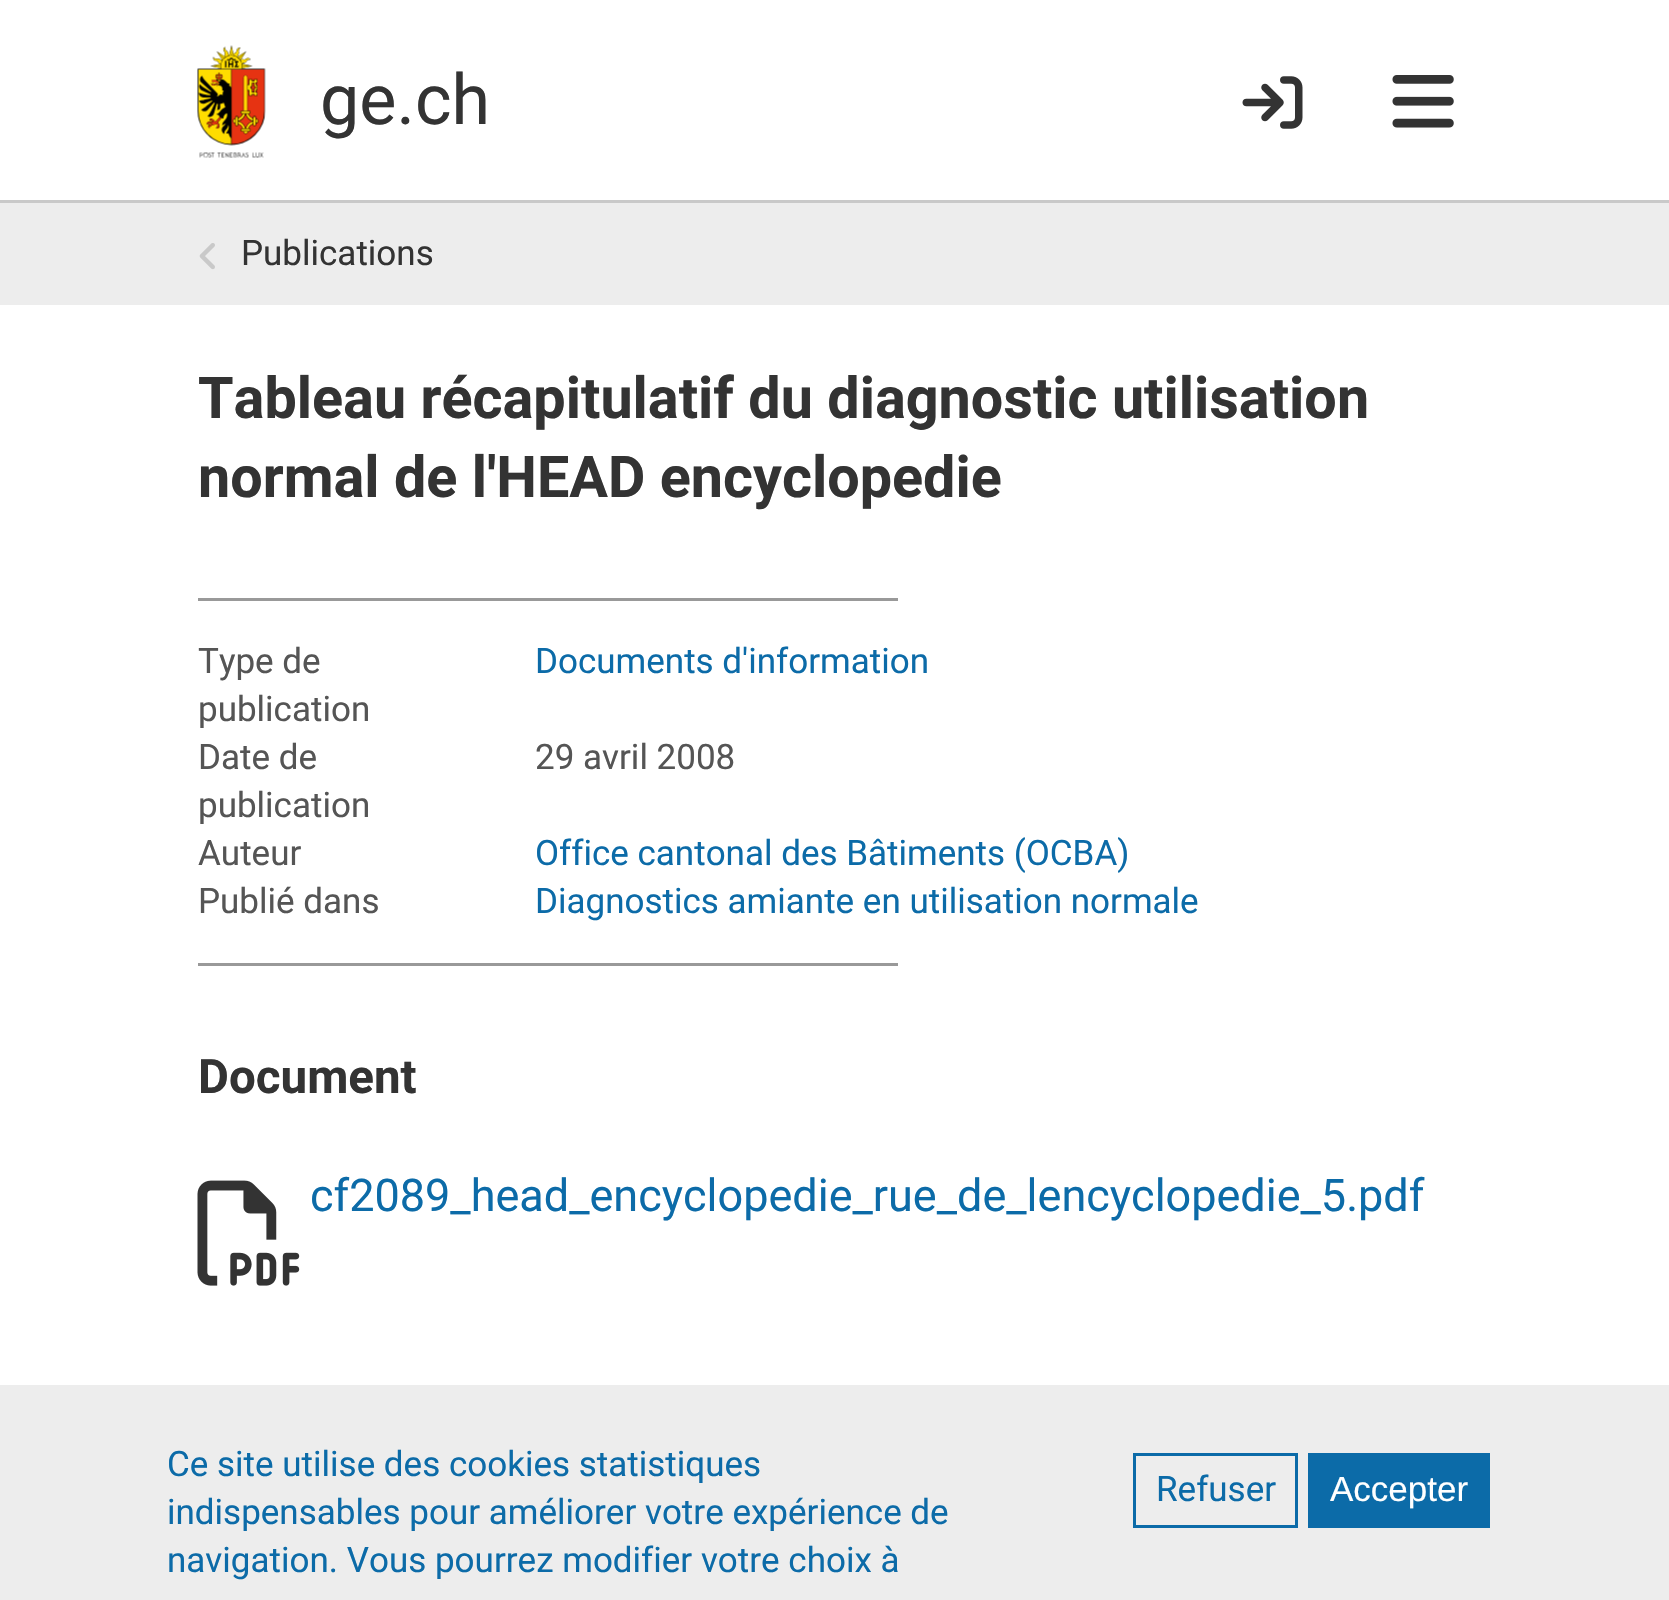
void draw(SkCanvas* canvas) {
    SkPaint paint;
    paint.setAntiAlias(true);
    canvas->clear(0xFFFFFFFF);
    paint.setColor(0xFFC9C9C9);
    canvas->drawRect(SkRect::MakeXYWH(0, 200, 1669, 3), paint);
    canvas->drawImageRect(SkImages::DeferredFromEncodedData(SkData::MakeFromFileName("img1.png")), SkRect::MakeXYWH(197, 45, 69, 113), SkSamplingOptions());
    SkFont font1(fontMgr->matchFamilyStyle("Roboto", SkFontStyle::Normal()), 70);
    font1.setSubpixel(true);
    paint.setColor(0xFF333333);
    canvas->drawString("ge.ch", 320, 124, font1, paint);
    canvas->drawImageRect(SkImages::DeferredFromEncodedData(SkData::MakeFromFileName("img2.png")), SkRect::MakeXYWH(1242, 76, 61, 53), SkSamplingOptions());
    canvas->drawImageRect(SkImages::DeferredFromEncodedData(SkData::MakeFromFileName("img3.png")), SkRect::MakeXYWH(1392, 75, 62, 53), SkSamplingOptions());
    paint.setColor(0xFFEDEDED);
    canvas->drawRect(SkRect::MakeXYWH(0, 203, 1669, 102), paint);
    canvas->drawImageRect(SkImages::DeferredFromEncodedData(SkData::MakeFromFileName("img4.png")), SkRect::MakeXYWH(199, 243, 16, 27), SkSamplingOptions());
    SkFont font2(fontMgr->matchFamilyStyle("Roboto", SkFontStyle::Normal()), 35);
    font2.setSubpixel(true);
    paint.setColor(0xFF333333);
    canvas->drawString("Publications", 241, 265, font2, paint);
    SkFont font3(fontMgr->matchFamilyStyle("Roboto", SkFontStyle::Bold()), 57.5f);
    font3.setSubpixel(true);
    canvas->drawString("Tableau récapitulatif du diagnostic utilisation", 198, 418, font3, paint);
    canvas->drawString("normal de l'HEAD encyclopedie", 198, 497, font3, paint);
    paint.setColor(0xFF999999);
    canvas->drawRect(SkRect::MakeXYWH(198, 598, 700, 3), paint);
    paint.setColor(0xFF555555);
    canvas->drawString("Type de", 198, 673, font2, paint);
    canvas->drawString("publication", 198, 721, font2, paint);
    paint.setColor(0xFF0C6BA8);
    canvas->drawString("Documents d'information", 535, 673, font2, paint);
    paint.setColor(0xFF555555);
    canvas->drawString("Date de", 198, 769, font2, paint);
    canvas->drawString("publication", 198, 817, font2, paint);
    canvas->drawString("29 avril 2008", 535, 769, font2, paint);
    canvas->drawString("Auteur", 198, 865, font2, paint);
    paint.setColor(0xFF0C6BA8);
    canvas->drawString("Office cantonal des Bâtiments (OCBA)", 535, 865, font2, paint);
    paint.setColor(0xFF555555);
    canvas->drawString("Publié dans", 198, 913, font2, paint);
    paint.setColor(0xFF0C6BA8);
    canvas->drawString("Diagnostics amiante en utilisation normale", 535, 913, font2, paint);
    paint.setColor(0xFF999999);
    canvas->drawRect(SkRect::MakeXYWH(198, 963, 700, 3), paint);
    SkFont font4(fontMgr->matchFamilyStyle("Roboto", SkFontStyle::Bold()), 47.5f);
    font4.setSubpixel(true);
    paint.setColor(0xFF333333);
    canvas->drawString("Document", 198, 1093, font4, paint);
    canvas->drawImageRect(SkImages::DeferredFromEncodedData(SkData::MakeFromFileName("img5.png")), SkRect::MakeXYWH(197, 1180, 103, 106), SkSamplingOptions());
    SkFont font5(fontMgr->matchFamilyStyle("Roboto", SkFontStyle::Normal()), 45);
    font5.setSubpixel(true);
    paint.setColor(0xFF0C6BA8);
    canvas->drawString("cf2089_head_encyclopedie_rue_de_lencyclopedie_5.pdf", 310, 1211, font5, paint);
    paint.setColor(0xFFEDEDED);
    canvas->drawRect(SkRect::MakeXYWH(0, 1385, 1669, 215), paint);
    paint.setColor(0xFF0C6BA8);
    canvas->drawString("Ce site utilise des cookies statistiques", 167, 1476, font2, paint);
    canvas->drawString("indispensables pour améliorer votre expérience de", 167, 1524, font2, paint);
    canvas->drawString("navigation. Vous pourrez modifier votre choix à", 167, 1572, font2, paint);
    paint.setStyle(SkPaint::kStroke_Style);
    paint.setStrokeWidth(3);
    canvas->drawRect(SkRect::MakeXYWH(1134.5f, 1454.5f, 162, 72), paint);
    paint.setStyle(SkPaint::kFill_Style);
    canvas->drawString("Refuser", 1156, 1501, font2, paint);
    canvas->drawRect(SkRect::MakeXYWH(1308, 1453, 182, 75), paint);
    SkFont font6(fontMgr->matchFamilyStyle("Liberation Sans", SkFontStyle::Normal()), 35);
    font6.setSubpixel(true);
    paint.setColor(0xFFFFFFFF);
    canvas->drawString("Accepter", 1330, 1501, font6, paint);
}
